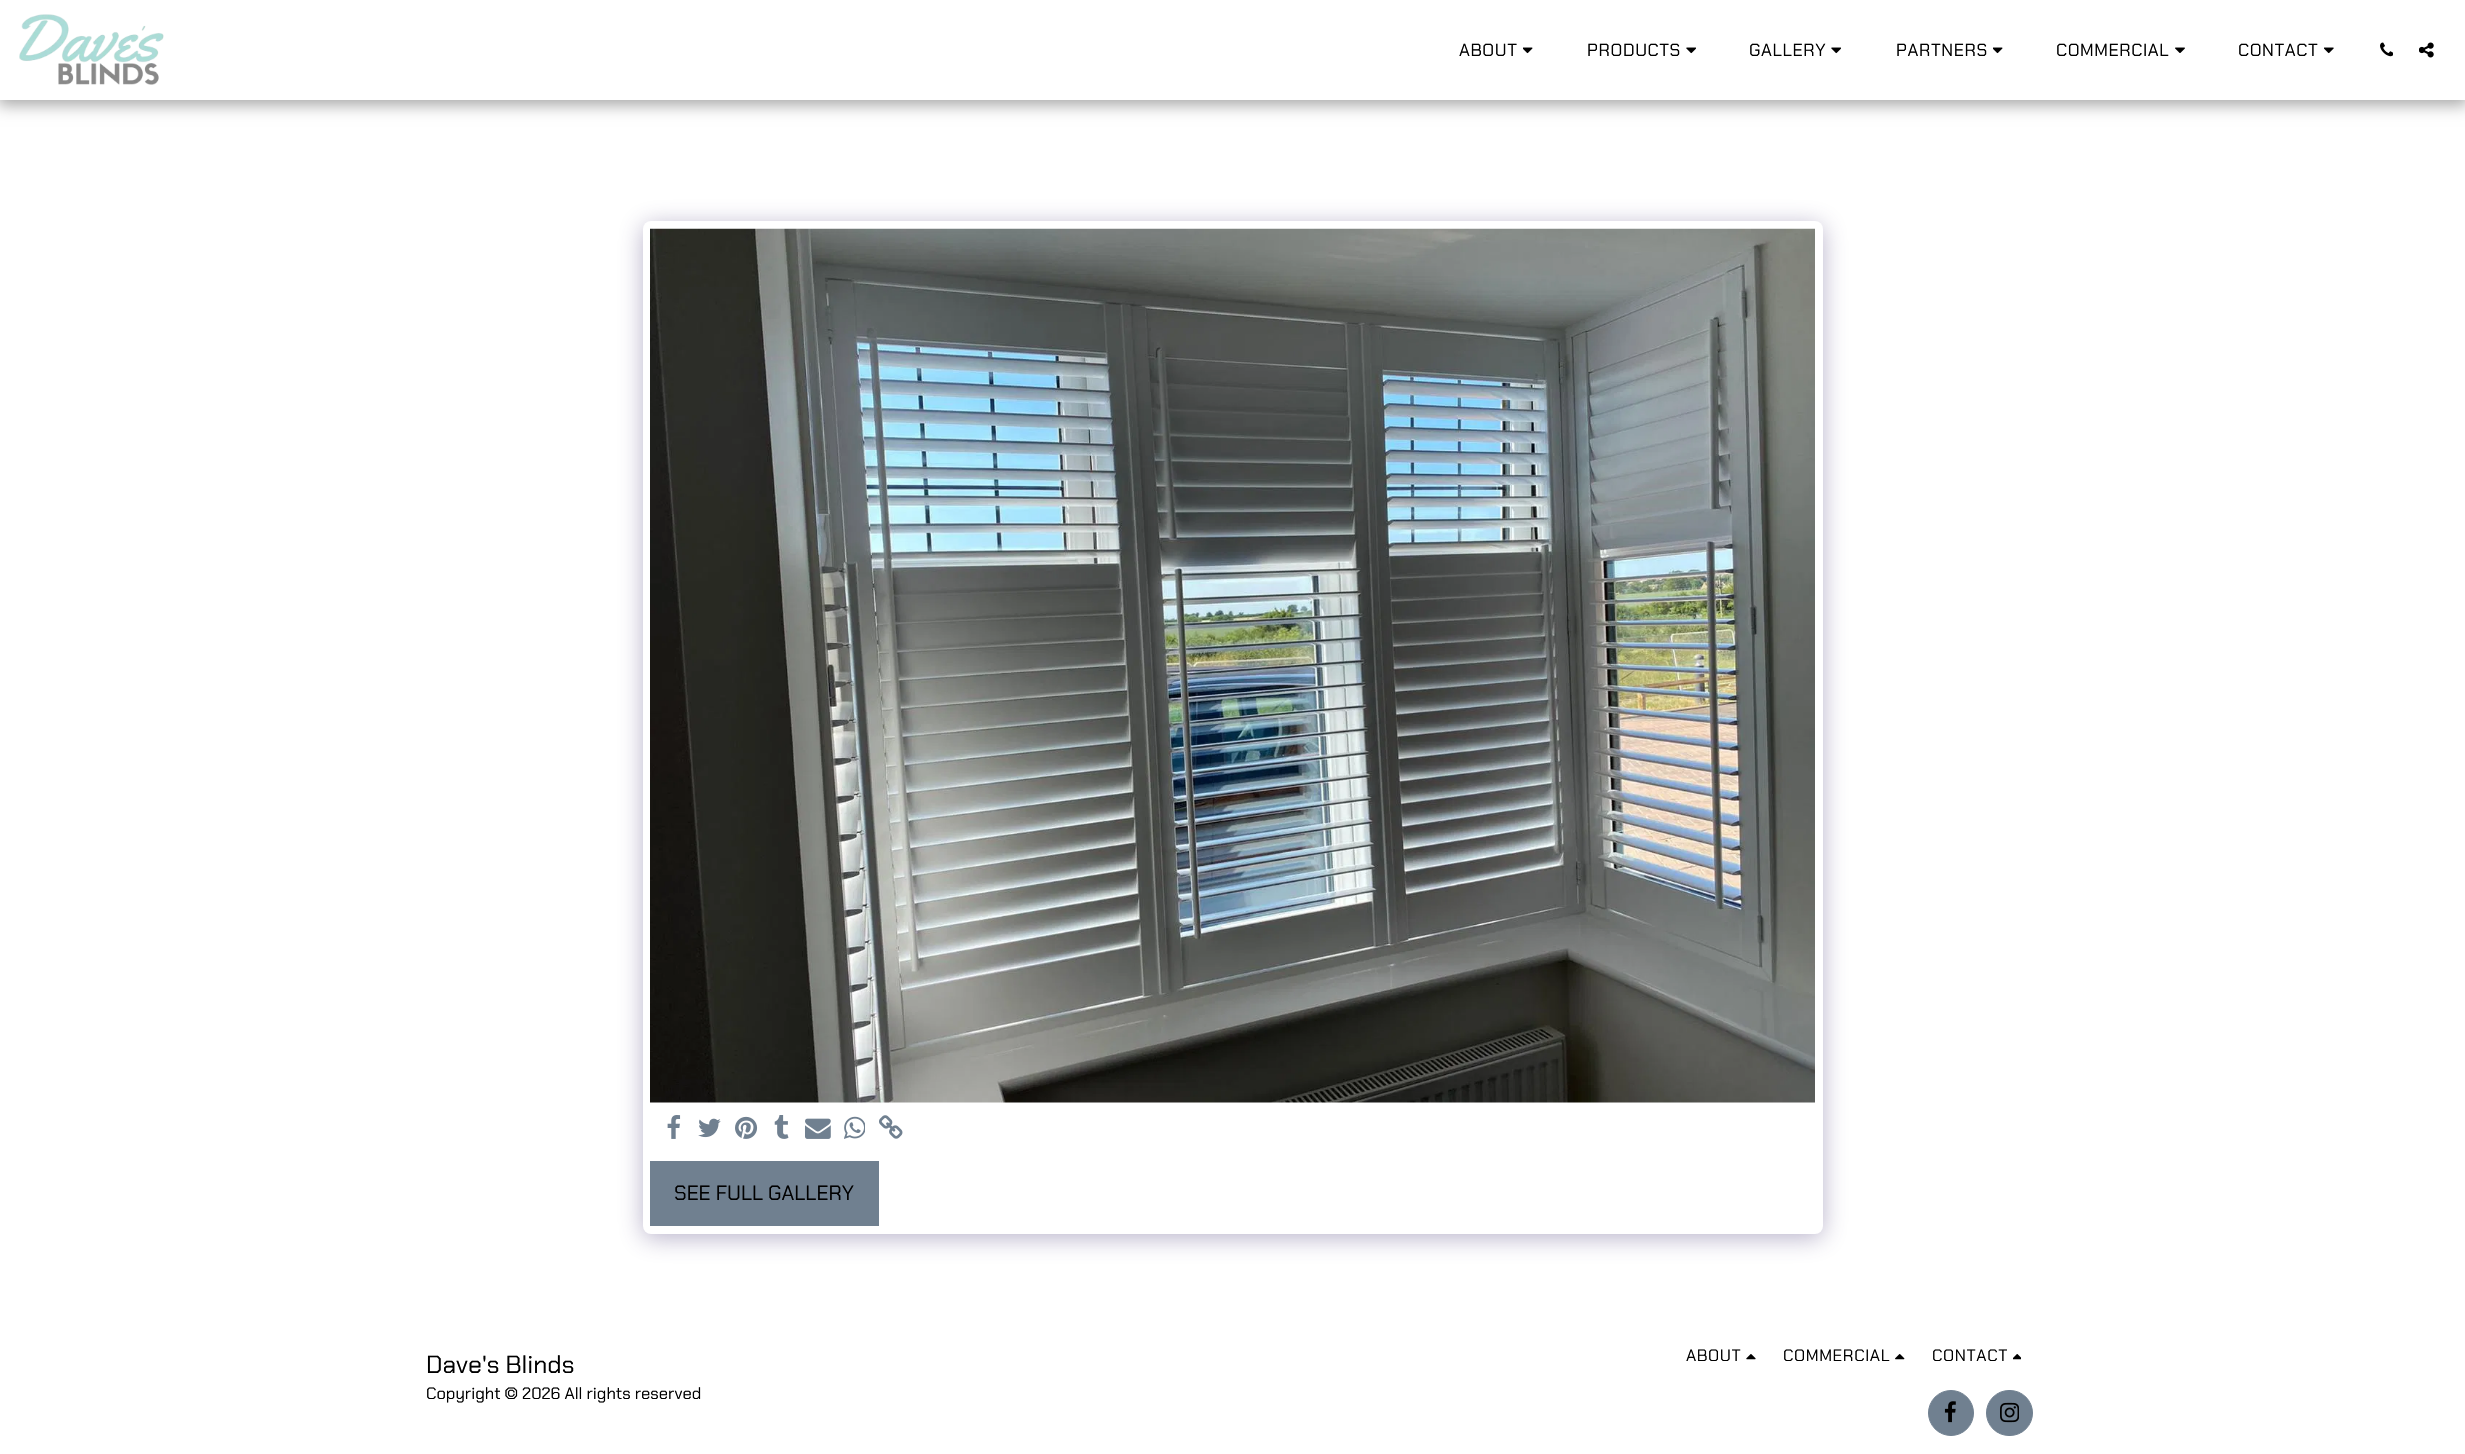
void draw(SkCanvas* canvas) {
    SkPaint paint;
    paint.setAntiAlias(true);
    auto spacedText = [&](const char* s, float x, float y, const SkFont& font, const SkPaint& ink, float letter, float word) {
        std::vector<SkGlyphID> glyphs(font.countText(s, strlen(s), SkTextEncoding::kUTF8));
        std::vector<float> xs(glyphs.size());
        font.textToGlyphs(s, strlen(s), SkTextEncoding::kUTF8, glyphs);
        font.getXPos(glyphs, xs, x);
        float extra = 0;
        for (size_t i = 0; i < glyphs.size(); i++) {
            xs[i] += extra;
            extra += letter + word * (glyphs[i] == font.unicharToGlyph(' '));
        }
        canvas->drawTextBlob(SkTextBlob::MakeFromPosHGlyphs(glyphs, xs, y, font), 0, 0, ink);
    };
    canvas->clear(0xFFFFFFFF);
    paint.setColor(0x59000000);
    paint.setMaskFilter(SkMaskFilter::MakeBlur(kNormal_SkBlurStyle, 7.5f));
    canvas->drawRect(SkRect::MakeXYWH(-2, 0, 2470, 105), paint);
    paint.setMaskFilter(nullptr);
    paint.setColor(0xFFFFFFFF);
    canvas->drawRect(SkRect::MakeXYWH(0, 0, 2465, 100), paint);
    canvas->drawImageRect(SkImages::DeferredFromEncodedData(SkData::MakeFromFileName("img1.png")), SkRect::MakeXYWH(19, 14, 145, 71), SkSamplingOptions());
    SkFont font1(fontMgr->matchFamilyStyle("Chakra Petch", SkFontStyle::Normal()), 17.5f);
    font1.setSubpixel(true);
    paint.setColor(0xFF000000);
    spacedText("ABOUT", 1459, 56, font1, paint, 0.6f, 0);
    canvas->drawImageRect(SkImages::DeferredFromEncodedData(SkData::MakeFromFileName("img2.png")), SkRect::MakeXYWH(1523, 47, 10, 7), SkSamplingOptions());
    spacedText("PRODUCTS", 1587, 56, font1, paint, 0.6f, 0);
    canvas->drawImageRect(SkImages::DeferredFromEncodedData(SkData::MakeFromFileName("img3.png")), SkRect::MakeXYWH(1686, 47, 10, 7), SkSamplingOptions());
    spacedText("GALLERY", 1749, 56, font1, paint, 0.6f, 0);
    canvas->drawImageRect(SkImages::DeferredFromEncodedData(SkData::MakeFromFileName("img3.png")), SkRect::MakeXYWH(1831, 47, 10, 7), SkSamplingOptions());
    spacedText("PARTNERS", 1896, 56, font1, paint, 0.6f, 0);
    canvas->drawImageRect(SkImages::DeferredFromEncodedData(SkData::MakeFromFileName("img2.png")), SkRect::MakeXYWH(1993, 47, 10, 7), SkSamplingOptions());
    spacedText("COMMERCIAL", 2056, 56, font1, paint, 0.6f, 0);
    canvas->drawImageRect(SkImages::DeferredFromEncodedData(SkData::MakeFromFileName("img4.png")), SkRect::MakeXYWH(2175, 47, 10, 6), SkSamplingOptions());
    spacedText("CONTACT", 2238, 56, font1, paint, 0.6f, 0);
    canvas->drawImageRect(SkImages::DeferredFromEncodedData(SkData::MakeFromFileName("img5.png")), SkRect::MakeXYWH(2324, 47, 10, 7), SkSamplingOptions());
    canvas->drawImageRect(SkImages::DeferredFromEncodedData(SkData::MakeFromFileName("img6.png")), SkRect::MakeXYWH(2380, 42, 13, 15), SkSamplingOptions());
    canvas->drawImageRect(SkImages::DeferredFromEncodedData(SkData::MakeFromFileName("img7.png")), SkRect::MakeXYWH(2419, 42, 15, 16), SkSamplingOptions());
    paint.setColor(0x664D3F7A);
    paint.setMaskFilter(SkMaskFilter::MakeBlur(kNormal_SkBlurStyle, 12.5f));
    canvas->drawRoundRect(SkRect::MakeXYWH(643, 225, 1180, 1013), 8, 8, paint);
    paint.setMaskFilter(nullptr);
    paint.setColor(0xFFFFFFFF);
    canvas->drawRoundRect(SkRect::MakeXYWH(643, 221, 1180, 1013), 8, 8, paint);
    canvas->drawImageRect(SkImages::DeferredFromEncodedData(SkData::MakeFromFileName("img8.png")), SkRect::MakeXYWH(650, 228, 1165, 875), SkSamplingOptions());
    canvas->drawImageRect(SkImages::DeferredFromEncodedData(SkData::MakeFromFileName("img9.png")), SkRect::MakeXYWH(667, 1115, 14, 24), SkSamplingOptions());
    canvas->drawImageRect(SkImages::DeferredFromEncodedData(SkData::MakeFromFileName("img10.png")), SkRect::MakeXYWH(698, 1118, 23, 20), SkSamplingOptions());
    canvas->drawImageRect(SkImages::DeferredFromEncodedData(SkData::MakeFromFileName("img11.png")), SkRect::MakeXYWH(735, 1116, 23, 23), SkSamplingOptions());
    canvas->drawImageRect(SkImages::DeferredFromEncodedData(SkData::MakeFromFileName("img12.png")), SkRect::MakeXYWH(774, 1115, 15, 24), SkSamplingOptions());
    canvas->drawImageRect(SkImages::DeferredFromEncodedData(SkData::MakeFromFileName("img13.png")), SkRect::MakeXYWH(805, 1118, 26, 21), SkSamplingOptions());
    canvas->drawImageRect(SkImages::DeferredFromEncodedData(SkData::MakeFromFileName("img14.png")), SkRect::MakeXYWH(844, 1116, 21, 23), SkSamplingOptions());
    canvas->drawImageRect(SkImages::DeferredFromEncodedData(SkData::MakeFromFileName("img15.png")), SkRect::MakeXYWH(879, 1115, 24, 24), SkSamplingOptions());
    paint.setColor(0xFF708090);
    canvas->drawRect(SkRect::MakeXYWH(650, 1161, 229, 65), paint);
    SkFont font2(fontMgr->matchFamilyStyle("Chakra Petch", SkFontStyle::Normal()), 20.6f);
    font2.setSubpixel(true);
    paint.setColor(0xFF000000);
    canvas->drawString("SEE FULL GALLERY", 674, 1200, font2, paint);
    SkFont font3(fontMgr->matchFamilyStyle("Chakra Petch", SkFontStyle::Normal()), 24.75f);
    font3.setSubpixel(true);
    canvas->drawString("Dave's Blinds", 426, 1373, font3, paint);
    SkFont font4(fontMgr->matchFamilyStyle("Chakra Petch", SkFontStyle::Normal()), 16.5f);
    font4.setSubpixel(true);
    canvas->drawString("Copyright © 2026 All rights reserved", 426, 1399, font4, paint);
    spacedText("ABOUT", 1686, 1361, font4, paint, 0.6f, 0);
    canvas->drawImageRect(SkImages::DeferredFromEncodedData(SkData::MakeFromFileName("img16.png")), SkRect::MakeXYWH(1746, 1354, 10, 6), SkSamplingOptions());
    spacedText("COMMERCIAL", 1783, 1361, font4, paint, 0.6f, 0);
    canvas->drawImageRect(SkImages::DeferredFromEncodedData(SkData::MakeFromFileName("img17.png")), SkRect::MakeXYWH(1895, 1354, 10, 6), SkSamplingOptions());
    spacedText("CONTACT", 1932, 1361, font4, paint, 0.6f, 0);
    canvas->drawImageRect(SkImages::DeferredFromEncodedData(SkData::MakeFromFileName("img18.png")), SkRect::MakeXYWH(2013, 1354, 8, 6), SkSamplingOptions());
    paint.setColor(0xFF708090);
    canvas->drawCircle(1951, 1413, 22.5f, paint);
    paint.setStyle(SkPaint::kStroke_Style);
    paint.setStrokeWidth(1);
    canvas->drawCircle(1951, 1413, 22.5f, paint);
    canvas->drawImageRect(SkImages::DeferredFromEncodedData(SkData::MakeFromFileName("img19.png")), SkRect::MakeXYWH(1944, 1401, 12, 22), SkSamplingOptions());
    paint.setStyle(SkPaint::kFill_Style);
    canvas->drawRoundRect(SkRect::MakeXYWH(1986.5f, 1390.5f, 46, 45), 22.5f, 22.5f, paint);
    paint.setStyle(SkPaint::kStroke_Style);
    canvas->drawRoundRect(SkRect::MakeXYWH(1986.5f, 1390.5f, 46, 45), 22.5f, 22.5f, paint);
    canvas->drawImageRect(SkImages::DeferredFromEncodedData(SkData::MakeFromFileName("img20.png")), SkRect::MakeXYWH(2000, 1402, 19, 21), SkSamplingOptions());
}
